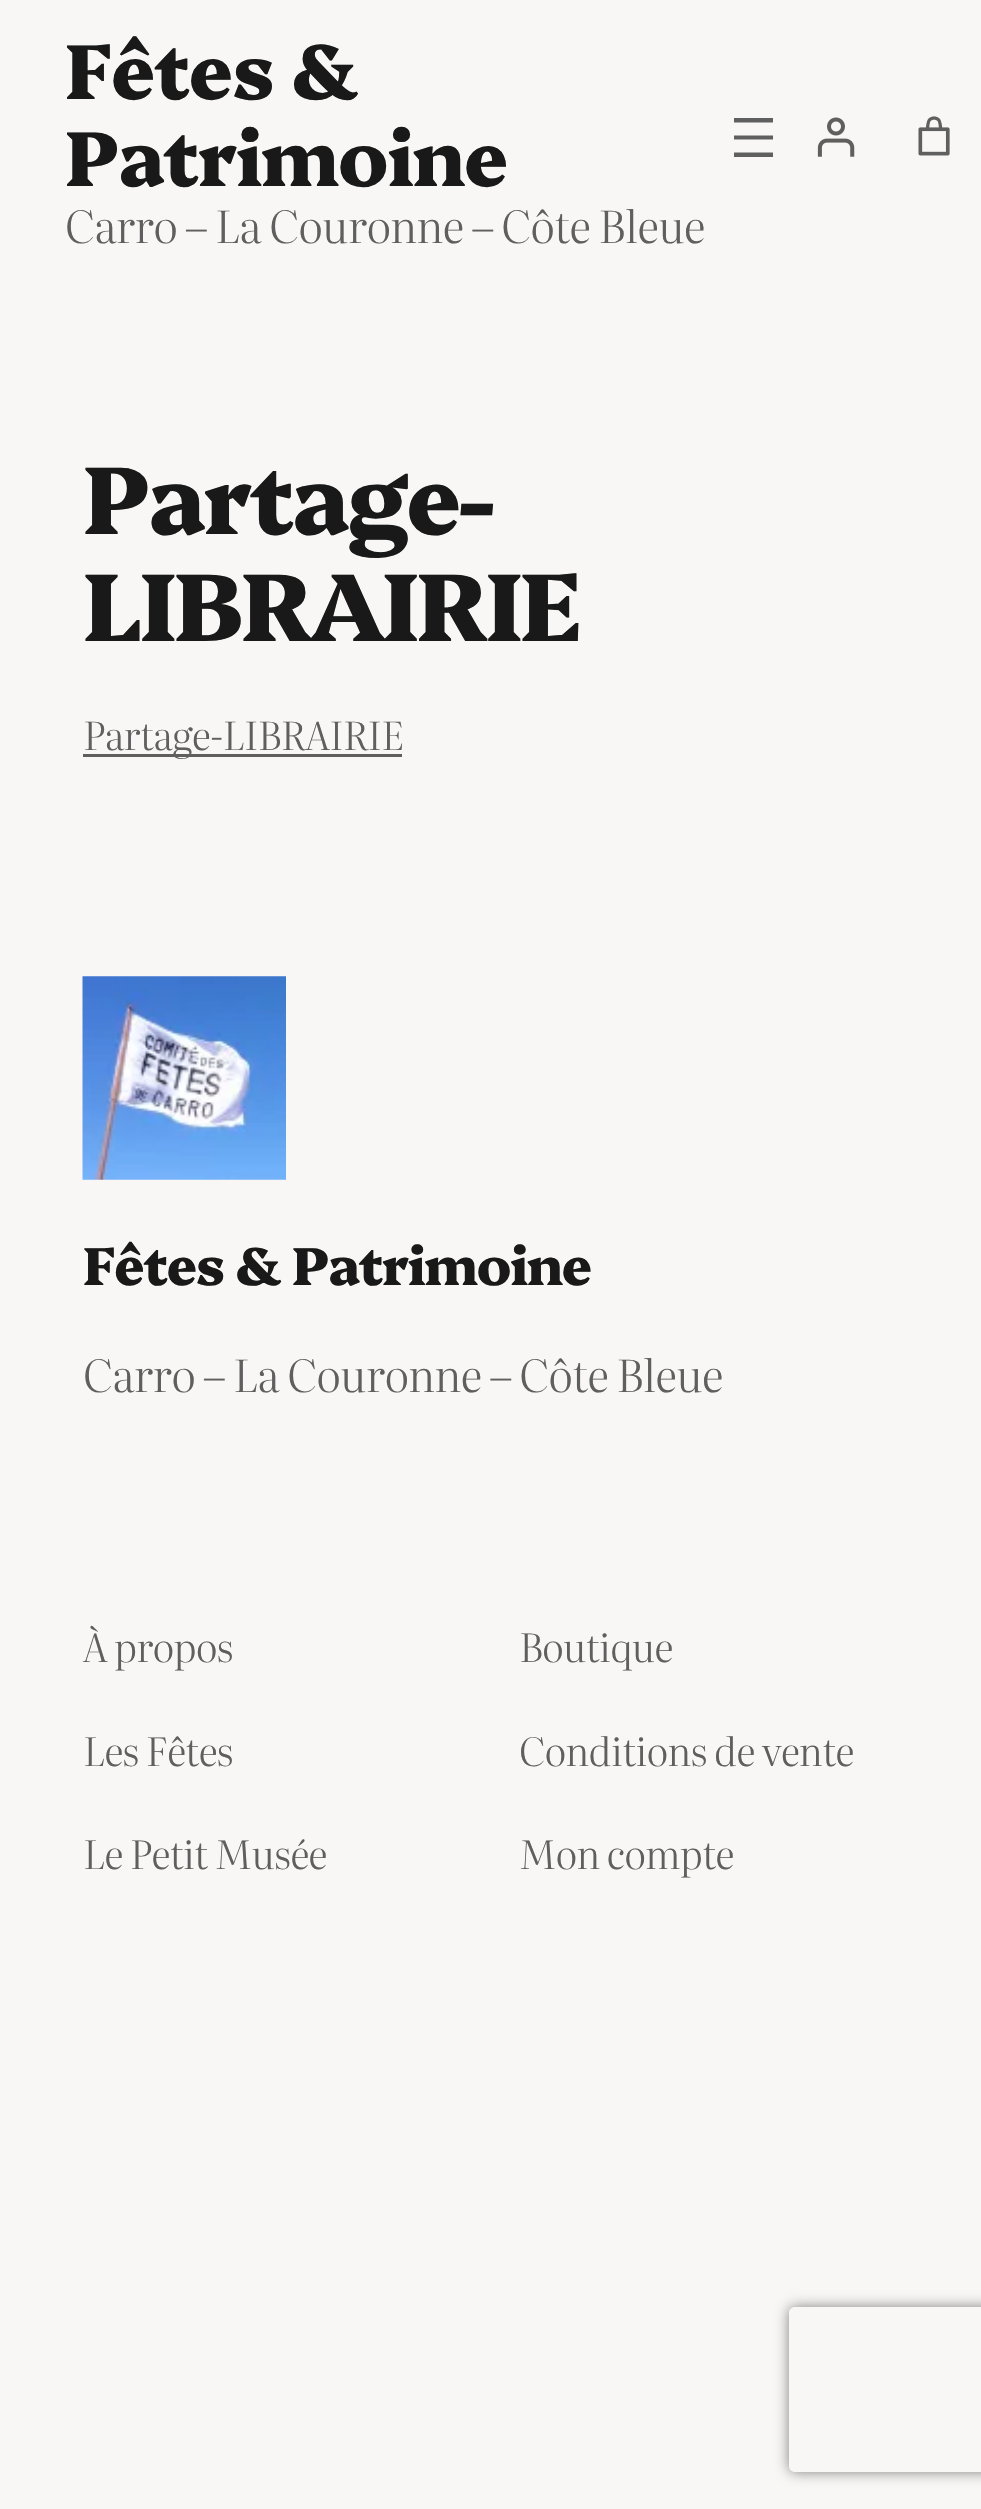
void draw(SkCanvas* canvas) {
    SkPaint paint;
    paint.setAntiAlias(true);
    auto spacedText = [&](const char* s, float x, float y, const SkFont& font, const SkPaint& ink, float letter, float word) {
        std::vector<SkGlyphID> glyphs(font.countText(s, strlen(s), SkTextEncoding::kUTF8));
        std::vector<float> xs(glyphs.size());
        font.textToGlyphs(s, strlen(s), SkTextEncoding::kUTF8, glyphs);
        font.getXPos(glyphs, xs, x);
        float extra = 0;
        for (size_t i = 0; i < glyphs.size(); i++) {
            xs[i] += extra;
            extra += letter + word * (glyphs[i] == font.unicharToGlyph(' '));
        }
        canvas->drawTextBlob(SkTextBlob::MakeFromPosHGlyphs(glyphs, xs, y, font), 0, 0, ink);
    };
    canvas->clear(0xFFF8F7F5);
    SkFont font1(fontMgr->matchFamilyStyle("Platypi", SkFontStyle(800, SkFontStyle::kNormal_Width, SkFontStyle::kUpright_Slant)), 77.5f);
    font1.setSubpixel(true);
    paint.setColor(0xFF191919);
    spacedText("Fêtes &", 65, 99, font1, paint, -1.6f, 0);
    spacedText("Patrimoine", 65, 186, font1, paint, -1.6f, 0);
    SkFont font2(fontMgr->matchFamilyStyle("Literata", SkFontStyle(300, SkFontStyle::kNormal_Width, SkFontStyle::kUpright_Slant)), 44.25f);
    font2.setSubpixel(true);
    paint.setColor(0xFF5F5F5F);
    spacedText("Carro – La Couronne – Côte Bleue", 65, 243, font2, paint, -0.65f, 0);
    canvas->drawPath(SkPathBuilder().moveTo(734, 118).lineTo(734, 122.5f).lineTo(773, 122.5f).lineTo(773, 118).close().moveTo(734, 139.5f).lineTo(773, 139.5f).lineTo(773, 135.5f).lineTo(734, 135.5f).close().moveTo(734, 157).lineTo(773, 157).lineTo(773, 152.5f).lineTo(734, 152.5f).close().detach(), paint);
    canvas->drawImageRect(SkImages::DeferredFromEncodedData(SkData::MakeFromFileName("img1.png")), SkRect::MakeXYWH(817, 117, 38, 40), SkSamplingOptions());
    canvas->drawImageRect(SkImages::DeferredFromEncodedData(SkData::MakeFromFileName("img2.png")), SkRect::MakeXYWH(918, 116, 32, 40), SkSamplingOptions());
    SkFont font3(fontMgr->matchFamilyStyle("Platypi", SkFontStyle(800, SkFontStyle::kNormal_Width, SkFontStyle::kUpright_Slant)), 96);
    font3.setSubpixel(true);
    paint.setColor(0xFF191919);
    spacedText("Partage-", 83, 534, font3, paint, -2.75f, 0);
    spacedText("LIBRAIRIE", 83, 641, font3, paint, -2.75f, 0);
    paint.setColor(0xFF5F5F5F);
    canvas->drawRect(SkRect::MakeXYWH(83, 754, 319, 3), paint);
    SkFont font4(fontMgr->matchFamilyStyle("Literata", SkFontStyle(300, SkFontStyle::kNormal_Width, SkFontStyle::kUpright_Slant)), 38.75f);
    font4.setSubpixel(true);
    spacedText("Partage-LIBRAIRIE", 83, 750, font4, paint, -0.65f, 0);
    canvas->drawImageRect(SkImages::DeferredFromEncodedData(SkData::MakeFromFileName("img3.png")), SkRect::MakeXYWH(82, 976, 204, 204), SkSamplingOptions());
    SkFont font5(fontMgr->matchFamilyStyle("Platypi", SkFontStyle(800, SkFontStyle::kNormal_Width, SkFontStyle::kUpright_Slant)), 53.25f);
    font5.setSubpixel(true);
    paint.setColor(0xFF191919);
    spacedText("Fêtes & Patrimoine", 83, 1285, font5, paint, -1.6f, 0);
    paint.setColor(0xFF5F5F5F);
    spacedText("Carro – La Couronne – Côte Bleue", 83, 1392, font2, paint, -0.65f, 0);
    SkFont font6(fontMgr->matchFamilyStyle("Literata", SkFontStyle(300, SkFontStyle::kNormal_Width, SkFontStyle::kUpright_Slant)), 39);
    font6.setSubpixel(true);
    spacedText("À propos", 83, 1662, font6, paint, -0.65f, 0);
    spacedText("Les Fêtes", 83, 1766, font6, paint, -0.65f, 0);
    spacedText("Le Petit Musée", 83, 1869, font6, paint, -0.65f, 0);
    spacedText("Boutique", 519, 1662, font6, paint, -0.65f, 0);
    spacedText("Conditions de vente", 519, 1766, font6, paint, -0.65f, 0);
    spacedText("Mon compte", 519, 1869, font6, paint, -0.65f, 0);
    canvas->save();
    canvas->clipPath(SkPathBuilder(SkPathFillType::kEvenOdd).moveTo(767, 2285).lineTo(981, 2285).lineTo(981, 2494).lineTo(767, 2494).close().moveTo(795, 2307).lineTo(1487, 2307).cubicTo(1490.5f, 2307, 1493, 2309.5f, 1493, 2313).lineTo(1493, 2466).cubicTo(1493, 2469.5f, 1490.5f, 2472, 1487, 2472).lineTo(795, 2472).cubicTo(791.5f, 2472, 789, 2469.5f, 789, 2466).lineTo(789, 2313).cubicTo(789, 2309.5f, 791.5f, 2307, 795, 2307).close().detach(), true);
    paint.setColor(0xFF808080);
    paint.setMaskFilter(SkMaskFilter::MakeBlur(kNormal_SkBlurStyle, 7));
    canvas->drawRoundRect(SkRect::MakeXYWH(789, 2307, 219, 165), 6, 6, paint);
    paint.setMaskFilter(nullptr);
    canvas->restore();
}
